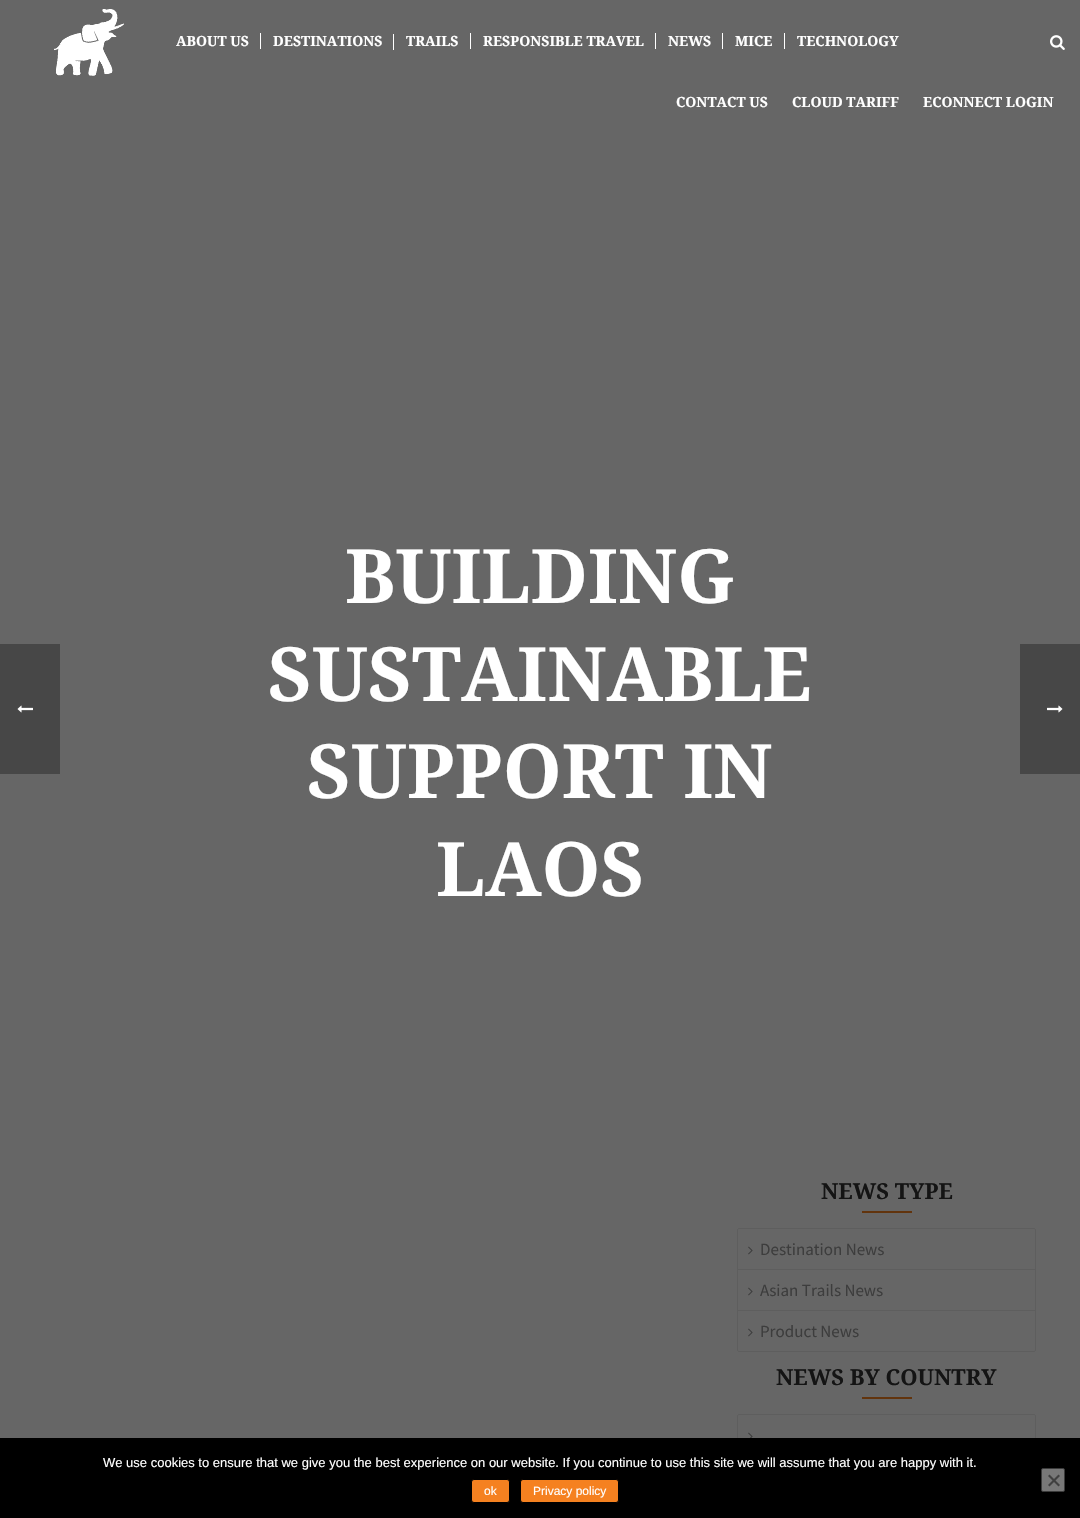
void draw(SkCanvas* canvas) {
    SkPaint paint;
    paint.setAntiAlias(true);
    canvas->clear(0xFF666666);
    paint.setColor(0xFF474747);
    canvas->drawRect(SkRect::MakeXYWH(0, 644, 60, 130), paint);
    canvas->drawImageRect(SkImages::DeferredFromEncodedData(SkData::MakeFromFileName("img1.png")), SkRect::MakeXYWH(17, 705, 16, 8), SkSamplingOptions());
    canvas->drawImageRect(SkImages::DeferredFromEncodedData(SkData::MakeFromFileName("img2.png")), SkRect::MakeXYWH(54, 9, 70, 67), SkSamplingOptions());
    SkFont font1(fontMgr->matchFamilyStyle("Droid Serif", SkFontStyle::Bold()), 14);
    font1.setSubpixel(true);
    paint.setColor(0xFFFFFFFF);
    canvas->drawString("ABOUT US", 176, 46, font1, paint);
    canvas->drawRect(SkRect::MakeXYWH(260, 33, 1, 16), paint);
    canvas->drawString("DESTINATIONS", 273, 46, font1, paint);
    canvas->drawRect(SkRect::MakeXYWH(393, 34, 1, 16), paint);
    canvas->drawString("TRAILS", 406, 46, font1, paint);
    canvas->drawRect(SkRect::MakeXYWH(470, 33, 1, 16), paint);
    canvas->drawString("RESPONSIBLE TRAVEL", 483, 46, font1, paint);
    canvas->drawRect(SkRect::MakeXYWH(655, 33, 1, 16), paint);
    canvas->drawString("NEWS", 668, 46, font1, paint);
    canvas->drawRect(SkRect::MakeXYWH(722, 33, 1, 16), paint);
    canvas->drawString("MICE", 735, 46, font1, paint);
    canvas->drawRect(SkRect::MakeXYWH(784, 33, 1, 16), paint);
    canvas->drawString("TECHNOLOGY", 797, 46, font1, paint);
    canvas->drawImageRect(SkImages::DeferredFromEncodedData(SkData::MakeFromFileName("img3.png")), SkRect::MakeXYWH(1050, 35, 15, 15), SkSamplingOptions());
    canvas->drawString("CONTACT US", 676, 107, font1, paint);
    canvas->drawString("CLOUD TARIFF", 792, 107, font1, paint);
    canvas->drawString("ECONNECT LOGIN", 923, 107, font1, paint);
    SkFont font2(fontMgr->matchFamilyStyle("Droid Serif", SkFontStyle::Bold()), 75);
    font2.setSubpixel(true);
    canvas->drawString("BUILDING", 345, 603, font2, paint);
    canvas->drawString("SUSTAINABLE", 268, 701, font2, paint);
    canvas->drawString("SUPPORT IN", 307, 798, font2, paint);
    canvas->drawString("LAOS", 436, 896, font2, paint);
    SkFont font3(fontMgr->matchFamilyStyle("Droid Serif", SkFontStyle::Bold()), 22);
    font3.setSubpixel(true);
    paint.setColor(0xFF141414);
    canvas->drawString("NEWS TYPE", 821, 1199, font3, paint);
    paint.setColor(0xFF62340D);
    canvas->drawRect(SkRect::MakeXYWH(862, 1211, 50, 2), paint);
    paint.setStyle(SkPaint::kStroke_Style);
    paint.setStrokeWidth(1);
    paint.setColor(0xFF5E5E5E);
    canvas->drawRoundRect(SkRect::MakeXYWH(737.5f, 1228.5f, 298, 123), 1.5f, 1.5f, paint);
    paint.setStyle(SkPaint::kFill_Style);
    canvas->drawRect(SkRect::MakeXYWH(738, 1269, 297, 1), paint);
    canvas->drawImageRect(SkImages::DeferredFromEncodedData(SkData::MakeFromFileName("img4.png")), SkRect::MakeXYWH(748, 1246, 5, 9), SkSamplingOptions());
    SkFont font4(fontMgr->matchFamilyStyle("Source Sans Pro", SkFontStyle::Normal()), 17);
    font4.setSubpixel(true);
    paint.setColor(0xFF3D3D3D);
    canvas->drawString("Destination News", 760, 1255, font4, paint);
    paint.setColor(0xFF5E5E5E);
    canvas->drawRect(SkRect::MakeXYWH(738, 1310, 297, 1), paint);
    canvas->drawImageRect(SkImages::DeferredFromEncodedData(SkData::MakeFromFileName("img4.png")), SkRect::MakeXYWH(748, 1287, 5, 9), SkSamplingOptions());
    paint.setColor(0xFF3D3D3D);
    canvas->drawString("Asian Trails News", 760, 1296, font4, paint);
    canvas->drawImageRect(SkImages::DeferredFromEncodedData(SkData::MakeFromFileName("img4.png")), SkRect::MakeXYWH(748, 1328, 5, 9), SkSamplingOptions());
    canvas->drawString("Product News", 760, 1337, font4, paint);
    paint.setColor(0xFF141414);
    canvas->drawString("NEWS BY COUNTRY", 776, 1385, font3, paint);
    paint.setColor(0xFF62340D);
    canvas->drawRect(SkRect::MakeXYWH(862, 1397, 50, 2), paint);
    paint.setStyle(SkPaint::kStroke_Style);
    paint.setColor(0xFF5E5E5E);
    canvas->drawRoundRect(SkRect::MakeXYWH(737.5f, 1414.5f, 298, 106), 1.5f, 1.5f, paint);
    canvas->drawImageRect(SkImages::DeferredFromEncodedData(SkData::MakeFromFileName("img5.png")), SkRect::MakeXYWH(748, 1432, 5, 6), SkSamplingOptions());
    paint.setStyle(SkPaint::kFill_Style);
    paint.setColor(0xFF474747);
    canvas->drawRect(SkRect::MakeXYWH(1020, 644, 60, 130), paint);
    canvas->drawImageRect(SkImages::DeferredFromEncodedData(SkData::MakeFromFileName("img6.png")), SkRect::MakeXYWH(1047, 705, 16, 8), SkSamplingOptions());
    paint.setColor(0xFF000000);
    canvas->drawRect(SkRect::MakeXYWH(0, 1438, 1080, 80), paint);
    SkFont font5(fontMgr->matchFamilyStyle("Liberation Sans", SkFontStyle::Normal()), 13);
    font5.setSubpixel(true);
    paint.setColor(0xFFFFFFFF);
    canvas->drawString("We use cookies to ensure that we give you the best experience on our website. If you continue to use this site we will assume that you are happy with it.", 103, 1467, font5, paint);
    paint.setColor(0xFFF58120);
    canvas->drawRoundRect(SkRect::MakeXYWH(471.5f, 1479.5f, 38, 23), 2.5f, 2.5f, paint);
    paint.setStyle(SkPaint::kStroke_Style);
    paint.setColor(0xFF000000);
    canvas->drawRoundRect(SkRect::MakeXYWH(471.5f, 1479.5f, 38, 23), 2.5f, 2.5f, paint);
    SkFont font6(fontMgr->matchFamilyStyle("Liberation Sans", SkFontStyle::Normal()), 12);
    font6.setSubpixel(true);
    paint.setStyle(SkPaint::kFill_Style);
    paint.setColor(0xFFFFFFFF);
    canvas->drawString("ok", 484, 1495, font6, paint);
    paint.setColor(0xFFF58120);
    canvas->drawRoundRect(SkRect::MakeXYWH(520.5f, 1479.5f, 98, 23), 2.5f, 2.5f, paint);
    paint.setStyle(SkPaint::kStroke_Style);
    paint.setColor(0xFF000000);
    canvas->drawRoundRect(SkRect::MakeXYWH(520.5f, 1479.5f, 98, 23), 2.5f, 2.5f, paint);
    paint.setStyle(SkPaint::kFill_Style);
    paint.setColor(0xFFFFFFFF);
    canvas->drawString("Privacy policy", 533, 1495, font6, paint);
    paint.setColor(0xFF787878);
    canvas->drawRoundRect(SkRect::MakeXYWH(1041.5f, 1468.5f, 23, 23), 1.5f, 1.5f, paint);
    paint.setStyle(SkPaint::kStroke_Style);
    paint.setColor(0xFF3B3B3B);
    canvas->drawRoundRect(SkRect::MakeXYWH(1041.5f, 1468.5f, 23, 23), 1.5f, 1.5f, paint);
    paint.setStyle(SkPaint::kFill_Style);
    paint.setColor(0xFF404040);
    canvas->drawPath(SkPathBuilder().moveTo(1058.5f, 1474.5f).lineTo(1060, 1476).lineTo(1049.5f, 1486.5f).lineTo(1048, 1485).close().detach(), paint);
    canvas->drawPath(SkPathBuilder().moveTo(1048, 1476).lineTo(1049.5f, 1474.5f).lineTo(1060, 1485).lineTo(1058.5f, 1486.5f).close().detach(), paint);
}
